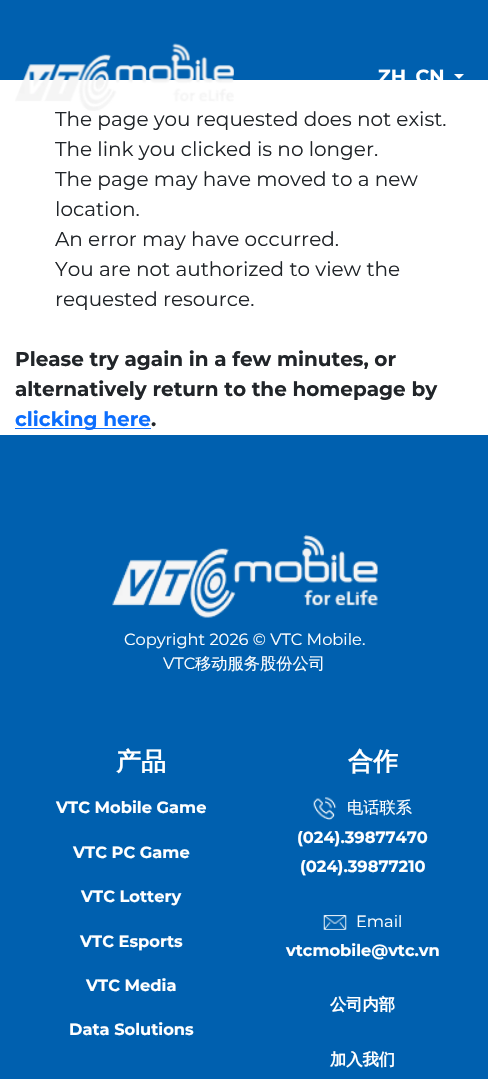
void draw(SkCanvas* canvas) {
    SkPaint paint;
    paint.setAntiAlias(true);
    canvas->clear(0xFFFFFFFF);
    paint.setColor(0xFF0060AF);
    canvas->drawRect(SkRect::MakeXYWH(0, 0, 488, 80), paint);
    canvas->drawImageRect(SkImages::DeferredFromEncodedData(SkData::MakeFromFileName("img1.png")), SkRect::MakeXYWH(15, 43, 219, 68), SkSamplingOptions());
    SkFont font1(fontMgr->matchFamilyStyle("Montserrat", SkFontStyle::Bold()), 19);
    font1.setSubpixel(true);
    paint.setColor(0xFFFFFFFF);
    canvas->drawString("ZH_CN", 378, 83, font1, paint);
    canvas->drawPath(SkPathBuilder().moveTo(454, 74).lineTo(464, 74).lineTo(459, 79).close().detach(), paint);
    SkFont font2(fontMgr->matchFamilyStyle("Montserrat", SkFontStyle::Normal()), 20);
    font2.setSubpixel(true);
    paint.setColor(0xFF212529);
    canvas->drawString("The page you requested does not exist.", 55, 126, font2, paint);
    canvas->drawString("The link you clicked is no longer.", 55, 156, font2, paint);
    canvas->drawString("The page may have moved to a new", 55, 186, font2, paint);
    canvas->drawString("location.", 55, 216, font2, paint);
    canvas->drawString("An error may have occurred.", 55, 246, font2, paint);
    canvas->drawString("You are not authorized to view the", 55, 276, font2, paint);
    canvas->drawString("requested resource.", 55, 306, font2, paint);
    SkFont font3(fontMgr->matchFamilyStyle("Montserrat", SkFontStyle::Bold()), 20);
    font3.setSubpixel(true);
    canvas->drawString("Please try again in a few minutes, or", 15, 366, font3, paint);
    canvas->drawString("alternatively return to the homepage by", 15, 396, font3, paint);
    paint.setColor(0xFF0D6EFD);
    canvas->drawRect(SkRect::MakeXYWH(15, 428, 136, 1), paint);
    canvas->drawString("clicking here", 15, 426, font3, paint);
    paint.setColor(0xFF212529);
    canvas->drawString(".", 151, 426, font3, paint);
    paint.setColor(0xFF0060AF);
    canvas->drawRect(SkRect::MakeXYWH(0, 435, 488, 644), paint);
    canvas->drawImageRect(SkImages::DeferredFromEncodedData(SkData::MakeFromFileName("img2.png")), SkRect::MakeXYWH(112, 535, 266, 83), SkSamplingOptions());
    SkFont font4(fontMgr->matchFamilyStyle("Montserrat", SkFontStyle::Normal()), 16.25f);
    font4.setSubpixel(true);
    paint.setColor(0xFFFFFFFF);
    canvas->drawString("Copyright 2026 © VTC Mobile.", 124, 645, font4, paint);
    canvas->drawString("VTC", 163, 669, font4, paint);
    SkFont font5(fontMgr->matchFamilyStyle("WenQuanYi Zen Hei", SkFontStyle(500, SkFontStyle::kNormal_Width, SkFontStyle::kUpright_Slant)), 16.25f);
    font5.setSubpixel(true);
    canvas->drawString("移动服务股份公司", 195, 669, font5, paint);
    SkFont font6(fontMgr->matchFamilyStyle("WenQuanYi Zen Hei", SkFontStyle::Bold()), 25);
    font6.setSubpixel(true);
    canvas->drawString("产品", 116, 770, font6, paint);
    SkFont font7(fontMgr->matchFamilyStyle("Montserrat", SkFontStyle::Bold()), 16.25f);
    font7.setSubpixel(true);
    canvas->drawString("VTC Mobile Game", 56, 813, font7, paint);
    canvas->drawString("VTC PC Game", 73, 858, font7, paint);
    canvas->drawString("VTC Lottery", 81, 902, font7, paint);
    canvas->drawString("VTC Esports", 80, 947, font7, paint);
    canvas->drawString("VTC Media", 86, 991, font7, paint);
    canvas->drawString("Data Solutions", 69, 1035, font7, paint);
    canvas->drawString("合作", 348, 770, font6, paint);
    canvas->drawImageRect(SkImages::DeferredFromEncodedData(SkData::MakeFromFileName("img3.png")), SkRect::MakeXYWH(313, 797, 24, 23), SkSamplingOptions());
    canvas->drawString("电话联系", 347, 813, font5, paint);
    canvas->drawString("(024).39877470", 297, 843, font7, paint);
    canvas->drawString("(024).39877210", 300, 872, font7, paint);
    canvas->drawImageRect(SkImages::DeferredFromEncodedData(SkData::MakeFromFileName("img4.png")), SkRect::MakeXYWH(323, 915, 24, 15), SkSamplingOptions());
    canvas->drawString("Email", 356, 927, font4, paint);
    canvas->drawString("vtcmobile@vtc.vn", 286, 956, font7, paint);
    SkFont font8(fontMgr->matchFamilyStyle("WenQuanYi Zen Hei", SkFontStyle::Bold()), 16.25f);
    font8.setSubpixel(true);
    canvas->drawString("公司内部", 330, 1010, font8, paint);
    canvas->drawString("加入我们", 330, 1065, font8, paint);
}
